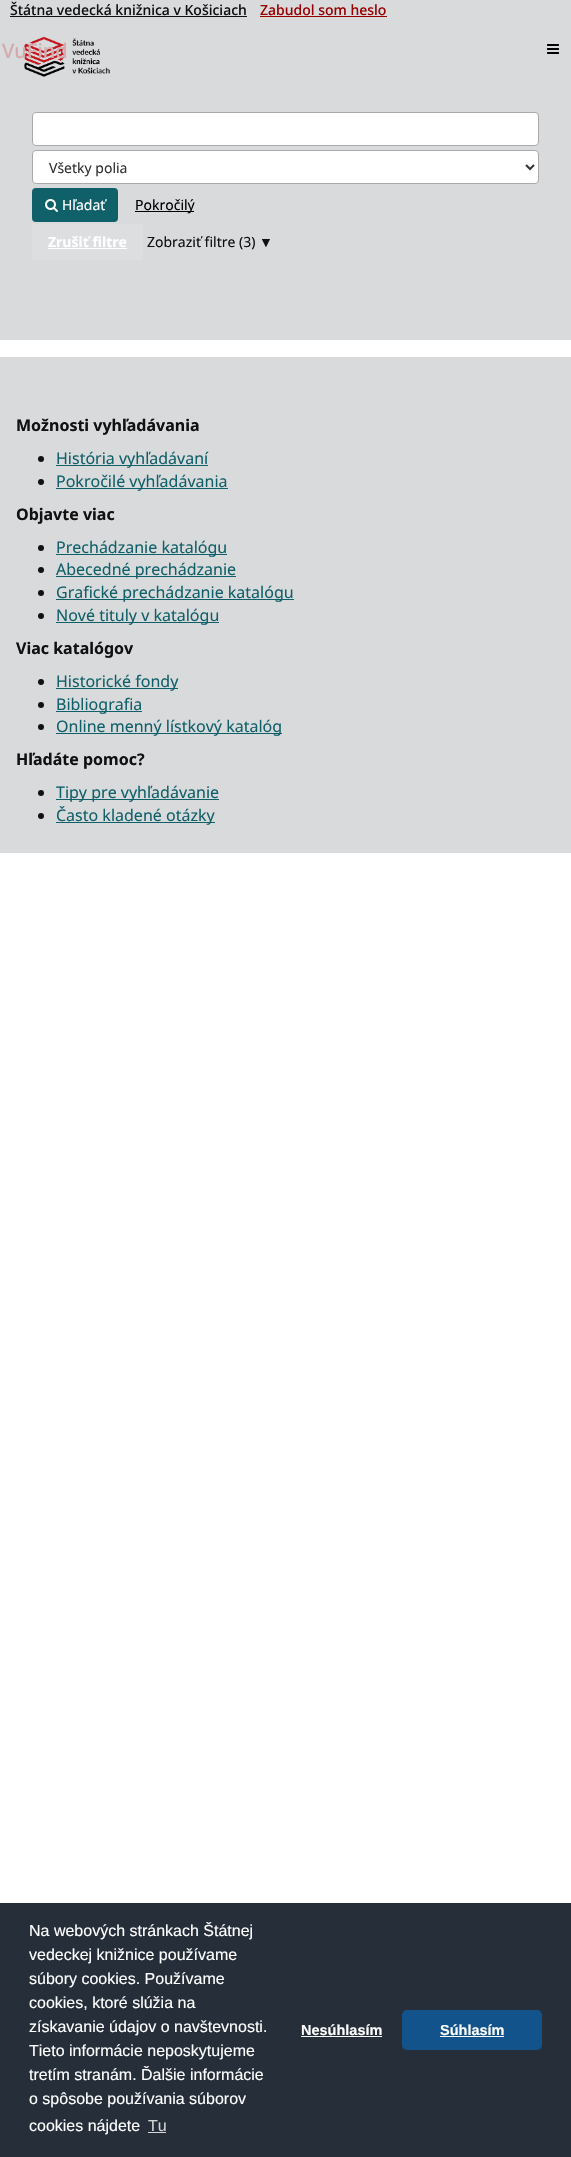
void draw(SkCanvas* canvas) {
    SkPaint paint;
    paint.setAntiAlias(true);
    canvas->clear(0xFFFFFFFF);
    paint.setColor(0xFFD8DADC);
    canvas->drawRect(SkRect::MakeXYWH(0, 0, 571, 340), paint);
    SkFont font1(fontMgr->matchFamilyStyle("Noto Sans", SkFontStyle(500, SkFontStyle::kNormal_Width, SkFontStyle::kUpright_Slant)), 14);
    font1.setSubpixel(true);
    paint.setColor(0xFF111111);
    canvas->drawString("Štátna vedecká knižnica v Košiciach", 10, 15, font1, paint);
    canvas->drawRect(SkRect::MakeXYWH(10, 16, 237, 1), paint);
    paint.setColor(0xFF990000);
    canvas->drawString("Zabudol som heslo", 260, 15, font1, paint);
    canvas->drawRect(SkRect::MakeXYWH(260, 16, 127, 1), paint);
    canvas->drawImageRect(SkImages::DeferredFromEncodedData(SkData::MakeFromFileName("img1.png")), SkRect::MakeXYWH(24, 36, 86, 41), SkSamplingOptions());
    SkFont font2(fontMgr->matchFamilyStyle("Noto Sans", SkFontStyle(500, SkFontStyle::kNormal_Width, SkFontStyle::kUpright_Slant)), 20);
    font2.setSubpixel(true);
    paint.setColor(0xFFD3ABAE);
    canvas->drawString("VuFind", 2, 58, font2, paint);
    canvas->drawImageRect(SkImages::DeferredFromEncodedData(SkData::MakeFromFileName("img2.png")), SkRect::MakeXYWH(547, 44, 12, 10), SkSamplingOptions());
    paint.setColor(0xFFFFFFFF);
    canvas->drawRoundRect(SkRect::MakeXYWH(32.5f, 112.5f, 506, 33), 3.5f, 3.5f, paint);
    paint.setStyle(SkPaint::kStroke_Style);
    paint.setStrokeWidth(1);
    paint.setColor(0xFFAAAAAA);
    canvas->drawRoundRect(SkRect::MakeXYWH(32.5f, 112.5f, 506, 33), 3.5f, 3.5f, paint);
    paint.setStyle(SkPaint::kFill_Style);
    paint.setColor(0xFFFFFFFF);
    canvas->drawRoundRect(SkRect::MakeXYWH(32.5f, 150.5f, 506, 33), 3.5f, 3.5f, paint);
    paint.setStyle(SkPaint::kStroke_Style);
    paint.setColor(0xFFAAAAAA);
    canvas->drawRoundRect(SkRect::MakeXYWH(32.5f, 150.5f, 506, 33), 3.5f, 3.5f, paint);
    paint.setStrokeWidth(2);
    paint.setColor(0xFF333333);
    canvas->drawPath(SkPathBuilder().moveTo(526, 165).lineTo(530, 169).lineTo(534, 165).detach(), paint);
    SkFont font3(fontMgr->matchFamilyStyle("Noto Sans", SkFontStyle::Normal()), 14);
    font3.setSubpixel(true);
    paint.setStyle(SkPaint::kFill_Style);
    canvas->drawString("Všetky polia", 49, 173, font3, paint);
    paint.setColor(0xFF106069);
    canvas->drawRoundRect(SkRect::MakeXYWH(32, 188, 86, 34), 4, 4, paint);
    canvas->drawImageRect(SkImages::DeferredFromEncodedData(SkData::MakeFromFileName("img3.png")), SkRect::MakeXYWH(45, 199, 13, 13), SkSamplingOptions());
    paint.setColor(0xFFFFFFFF);
    canvas->drawString("Hľadať", 62, 210, font3, paint);
    paint.setColor(0xFF000000);
    canvas->drawRect(SkRect::MakeXYWH(135, 211, 59, 1), paint);
    canvas->drawString("Pokročilý", 135, 210, font3, paint);
    paint.setColor(0xFFDCDEE0);
    canvas->drawRoundRect(SkRect::MakeXYWH(32, 224, 111, 36), 4, 4, paint);
    SkFont font4(fontMgr->matchFamilyStyle("Noto Sans", SkFontStyle::Bold()), 14);
    font4.setSubpixel(true);
    paint.setColor(0xFFFFFFFF);
    canvas->drawString("Zrušiť filtre", 48, 247, font4, paint);
    canvas->drawRect(SkRect::MakeXYWH(48, 248, 79, 1), paint);
    paint.setColor(0xFF111111);
    canvas->drawString("Zobraziť filtre (3)", 147, 247, font3, paint);
    SkFont font5(fontMgr->matchFamilyStyle("Liberation Sans", SkFontStyle::Normal()), 14);
    font5.setSubpixel(true);
    canvas->drawString("▼", 259, 247, font5, paint);
    paint.setColor(0xFFD8DADC);
    canvas->drawRect(SkRect::MakeXYWH(0, 357, 571, 496), paint);
    SkFont font6(fontMgr->matchFamilyStyle("Noto Sans", SkFontStyle::Bold()), 16);
    font6.setSubpixel(true);
    paint.setColor(0xFF111111);
    canvas->drawString("Možnosti vyhľadávania", 16, 431, font6, paint);
    canvas->drawCircle(41, 459, 3, paint);
    paint.setColor(0xFF106069);
    canvas->drawRect(SkRect::MakeXYWH(56, 465, 152, 1), paint);
    SkFont font7(fontMgr->matchFamilyStyle("Noto Sans", SkFontStyle::Normal()), 16);
    font7.setSubpixel(true);
    canvas->drawString("História vyhľadávaní", 56, 464, font7, paint);
    paint.setColor(0xFF111111);
    canvas->drawCircle(41, 482, 3, paint);
    paint.setColor(0xFF106069);
    canvas->drawRect(SkRect::MakeXYWH(56, 488, 172, 1), paint);
    canvas->drawString("Pokročilé vyhľadávania", 56, 487, font7, paint);
    paint.setColor(0xFF111111);
    canvas->drawString("Objavte viac", 16, 520, font6, paint);
    canvas->drawCircle(41, 548, 3, paint);
    paint.setColor(0xFF106069);
    canvas->drawRect(SkRect::MakeXYWH(56, 554, 171, 1), paint);
    canvas->drawString("Prechádzanie katalógu", 56, 553, font7, paint);
    paint.setColor(0xFF111111);
    canvas->drawCircle(41, 570, 3, paint);
    paint.setColor(0xFF106069);
    canvas->drawRect(SkRect::MakeXYWH(56, 576, 180, 1), paint);
    canvas->drawString("Abecedné prechádzanie", 56, 575, font7, paint);
    paint.setColor(0xFF111111);
    canvas->drawCircle(41, 593, 3, paint);
    paint.setColor(0xFF106069);
    canvas->drawRect(SkRect::MakeXYWH(56, 599, 238, 1), paint);
    canvas->drawString("Grafické prechádzanie katalógu", 56, 598, font7, paint);
    paint.setColor(0xFF111111);
    canvas->drawCircle(41, 616, 3, paint);
    paint.setColor(0xFF106069);
    canvas->drawRect(SkRect::MakeXYWH(56, 622, 163, 1), paint);
    canvas->drawString("Nové tituly v katalógu", 56, 621, font7, paint);
    paint.setColor(0xFF111111);
    canvas->drawString("Viac katalógov", 16, 654, font6, paint);
    canvas->drawCircle(41, 682, 3, paint);
    paint.setColor(0xFF106069);
    canvas->drawRect(SkRect::MakeXYWH(56, 688, 122, 1), paint);
    canvas->drawString("Historické fondy", 56, 687, font7, paint);
    paint.setColor(0xFF111111);
    canvas->drawCircle(41, 705, 3, paint);
    paint.setColor(0xFF106069);
    canvas->drawRect(SkRect::MakeXYWH(56, 711, 86, 1), paint);
    canvas->drawString("Bibliografia", 56, 710, font7, paint);
    paint.setColor(0xFF111111);
    canvas->drawCircle(41, 727, 3, paint);
    paint.setColor(0xFF106069);
    canvas->drawRect(SkRect::MakeXYWH(56, 733, 226, 1), paint);
    canvas->drawString("Online menný lístkový katalóg", 56, 732, font7, paint);
    paint.setColor(0xFF111111);
    canvas->drawString("Hľadáte pomoc?", 16, 765, font6, paint);
    canvas->drawCircle(41, 793, 3, paint);
    paint.setColor(0xFF106069);
    canvas->drawRect(SkRect::MakeXYWH(56, 799, 163, 1), paint);
    canvas->drawString("Tipy pre vyhľadávanie", 56, 798, font7, paint);
    paint.setColor(0xFF111111);
    canvas->drawCircle(41, 816, 3, paint);
    paint.setColor(0xFF106069);
    canvas->drawRect(SkRect::MakeXYWH(56, 822, 159, 1), paint);
    canvas->drawString("Často kladené otázky", 56, 821, font7, paint);
    paint.setColor(0xFF252E39);
    canvas->drawRect(SkRect::MakeXYWH(0, 1903, 571, 254), paint);
    SkFont font8(fontMgr->matchFamilyStyle("Liberation Sans", SkFontStyle::Normal()), 16);
    font8.setSubpixel(true);
    paint.setColor(0xFFFFFFFF);
    canvas->drawString("Na webových stránkach Štátnej", 29, 1936, font8, paint);
    canvas->drawString("vedeckej knižnice používame", 29, 1960, font8, paint);
    canvas->drawString("súbory cookies. Používame", 29, 1984, font8, paint);
    canvas->drawString("cookies, ktoré slúžia na", 29, 2008, font8, paint);
    canvas->drawString("získavanie údajov o navštevnosti.", 29, 2032, font8, paint);
    canvas->drawString("Tieto informácie neposkytujeme", 29, 2056, font8, paint);
    canvas->drawString("tretím stranám. Ďalšie informácie", 29, 2080, font8, paint);
    canvas->drawString("o spôsobe používania súborov", 29, 2104, font8, paint);
    canvas->drawString("cookies nájdete", 29, 2131, font8, paint);
    paint.setColor(0xFFD3D5D7);
    canvas->drawString("Tu", 148, 2131, font8, paint);
    canvas->drawRect(SkRect::MakeXYWH(148, 2132, 18, 1), paint);
    SkFont font9(fontMgr->matchFamilyStyle("Liberation Sans", SkFontStyle::Bold()), 14.5f);
    font9.setSubpixel(true);
    paint.setColor(0xFFFFFFFF);
    canvas->drawString("Nesúhlasím", 301, 2035, font9, paint);
    canvas->drawRect(SkRect::MakeXYWH(301, 2036, 81, 1), paint);
    paint.setColor(0xFF12538B);
    canvas->drawRoundRect(SkRect::MakeXYWH(402, 2010, 140, 40), 5, 5, paint);
    paint.setColor(0xFFFFFFFF);
    canvas->drawString("Súhlasím", 440, 2035, font9, paint);
    canvas->drawRect(SkRect::MakeXYWH(440, 2036, 64, 1), paint);
}
